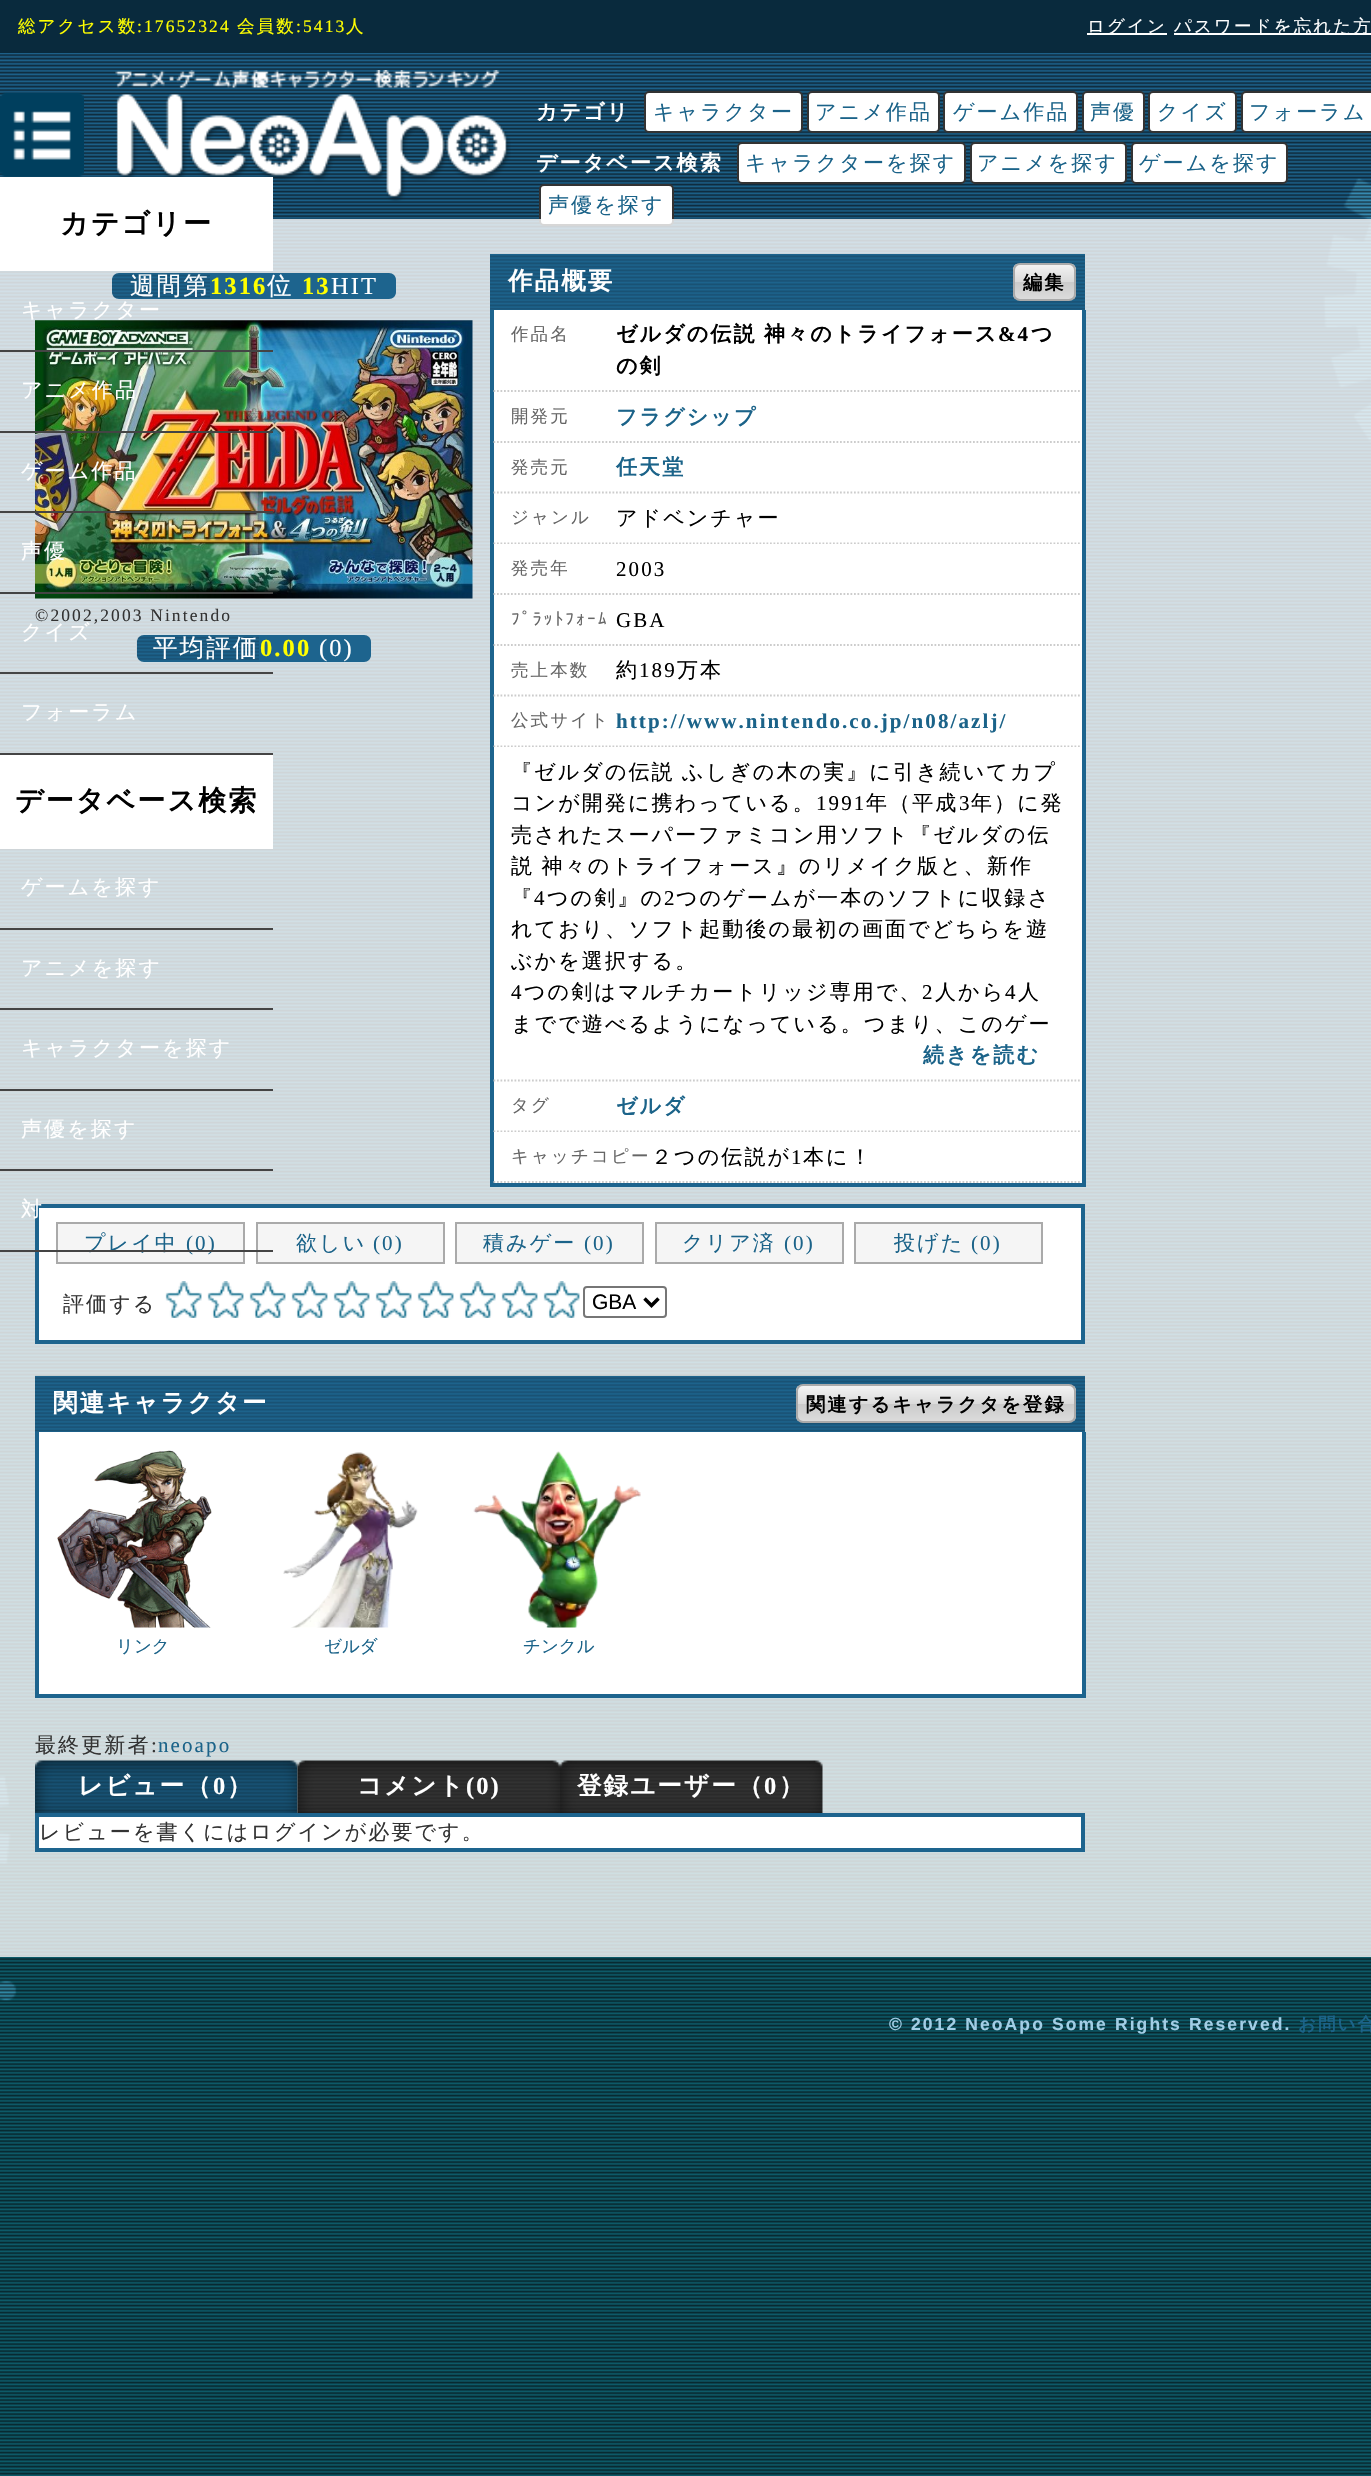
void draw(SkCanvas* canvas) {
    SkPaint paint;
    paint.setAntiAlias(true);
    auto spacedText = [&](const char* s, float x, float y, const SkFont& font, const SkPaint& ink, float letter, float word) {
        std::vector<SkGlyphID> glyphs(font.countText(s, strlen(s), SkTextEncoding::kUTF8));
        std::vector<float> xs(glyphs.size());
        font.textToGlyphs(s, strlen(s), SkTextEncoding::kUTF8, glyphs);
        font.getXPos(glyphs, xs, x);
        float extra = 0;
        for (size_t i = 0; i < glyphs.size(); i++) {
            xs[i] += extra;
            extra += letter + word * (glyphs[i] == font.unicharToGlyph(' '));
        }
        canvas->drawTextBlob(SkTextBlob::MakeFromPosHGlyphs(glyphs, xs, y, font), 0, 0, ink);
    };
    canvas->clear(0xFF0D5E6D);
    canvas->drawImageRect(SkImages::DeferredFromEncodedData(SkData::MakeFromFileName("img1.png")), SkRect::MakeXYWH(0, 2093, 1371, 383), SkSamplingOptions());
    {
        const SkColor colors[] = {0xFF1E6490, 0xFF0D5E6D};
        const float stops[] = {0, 1};
        const SkPoint ends[] = {{686, 0}, {686, 2093}};
        paint.setShader(SkGradientShader::MakeLinear(ends, colors, stops, 2, SkTileMode::kClamp));
        paint.setAlpha(255);
    }
    canvas->drawRect(SkRect::MakeXYWH(0, 53, 1371, 1891), paint);
    paint.setShader(nullptr);
    paint.setColor(0xFF092A3D);
    canvas->drawRect(SkRect::MakeXYWH(0, 0, 1371, 53), paint);
    SkFont font1(fontMgr->matchFamilyStyle("WenQuanYi Zen Hei", SkFontStyle(500, SkFontStyle::kNormal_Width, SkFontStyle::kUpright_Slant)), 17.5f);
    font1.setSubpixel(true);
    paint.setColor(0xFFFFFF00);
    spacedText("総アクセス数", 18, 32, font1, paint, 2.1f, 0);
    SkFont font2(fontMgr->matchFamilyStyle("Liberation Serif", SkFontStyle::Normal()), 17.5f);
    font2.setSubpixel(true);
    spacedText(":17652324", 137, 32, font2, paint, 2.1f, 0);
    spacedText("会員数", 237, 32, font1, paint, 2.1f, 0);
    spacedText(":5413", 296, 32, font2, paint, 2.1f, 0);
    spacedText("人", 346, 32, font1, paint, 2.1f, 0);
    paint.setColor(0xFFFFFFFF);
    canvas->drawRect(SkRect::MakeXYWH(1087, 33, 80, 2), paint);
    spacedText("ログイン", 1087, 32, font1, paint, 2.1f, 0);
    canvas->drawRect(SkRect::MakeXYWH(1174, 33, 197, 2), paint);
    spacedText("パスワードを忘れた方", 1174, 32, font1, paint, 2.1f, 0);
    canvas->drawImageRect(SkImages::DeferredFromEncodedData(SkData::MakeFromFileName("img2.png")), SkRect::MakeXYWH(1323, 178, 48, 264), SkSamplingOptions());
    canvas->drawImageRect(SkImages::DeferredFromEncodedData(SkData::MakeFromFileName("img3.png")), SkRect::MakeXYWH(0, 1776, 17, 225), SkSamplingOptions());
    canvas->drawImageRect(SkImages::DeferredFromEncodedData(SkData::MakeFromFileName("img4.png")), SkRect::MakeXYWH(0, 53, 1371, 2040), SkSamplingOptions());
    canvas->drawImageRect(SkImages::DeferredFromEncodedData(SkData::MakeFromFileName("img5.png")), SkRect::MakeXYWH(115, 70, 396, 131), SkSamplingOptions());
    SkFont font3(fontMgr->matchFamilyStyle("WenQuanYi Zen Hei", SkFontStyle::Bold()), 21);
    font3.setSubpixel(true);
    spacedText("カテゴリ", 536, 119, font3, paint, 2.1f, 0);
    canvas->drawRoundRect(SkRect::MakeXYWH(645, 92, 157, 40), 4, 4, paint);
    paint.setStyle(SkPaint::kStroke_Style);
    paint.setStrokeWidth(2);
    paint.setColor(0xFF333333);
    canvas->drawRoundRect(SkRect::MakeXYWH(645, 92, 157, 40), 4, 4, paint);
    SkFont font4(fontMgr->matchFamilyStyle("WenQuanYi Zen Hei", SkFontStyle(500, SkFontStyle::kNormal_Width, SkFontStyle::kUpright_Slant)), 21);
    font4.setSubpixel(true);
    paint.setStyle(SkPaint::kFill_Style);
    paint.setColor(0xFF1B6389);
    spacedText("キャラクター", 653, 119, font4, paint, 2.1f, 0);
    paint.setColor(0xFFFFFFFF);
    canvas->drawRoundRect(SkRect::MakeXYWH(808, 92, 131, 40), 4, 4, paint);
    paint.setStyle(SkPaint::kStroke_Style);
    paint.setColor(0xFF333333);
    canvas->drawRoundRect(SkRect::MakeXYWH(808, 92, 131, 40), 4, 4, paint);
    paint.setStyle(SkPaint::kFill_Style);
    paint.setColor(0xFF1B6389);
    spacedText("アニメ作品", 815, 119, font4, paint, 2.1f, 0);
    paint.setColor(0xFFFFFFFF);
    canvas->drawRoundRect(SkRect::MakeXYWH(944, 92, 133, 40), 4, 4, paint);
    paint.setStyle(SkPaint::kStroke_Style);
    paint.setColor(0xFF333333);
    canvas->drawRoundRect(SkRect::MakeXYWH(944, 92, 133, 40), 4, 4, paint);
    paint.setStyle(SkPaint::kFill_Style);
    paint.setColor(0xFF1B6389);
    spacedText("ゲーム作品", 953, 119, font4, paint, 2.1f, 0);
    paint.setColor(0xFFFFFFFF);
    canvas->drawRoundRect(SkRect::MakeXYWH(1083, 92, 61, 40), 4, 4, paint);
    paint.setStyle(SkPaint::kStroke_Style);
    paint.setColor(0xFF333333);
    canvas->drawRoundRect(SkRect::MakeXYWH(1083, 92, 61, 40), 4, 4, paint);
    paint.setStyle(SkPaint::kFill_Style);
    paint.setColor(0xFF1B6389);
    spacedText("声優", 1090, 119, font4, paint, 2.1f, 0);
    paint.setColor(0xFFFFFFFF);
    canvas->drawRoundRect(SkRect::MakeXYWH(1149, 92, 87, 40), 4, 4, paint);
    paint.setStyle(SkPaint::kStroke_Style);
    paint.setColor(0xFF333333);
    canvas->drawRoundRect(SkRect::MakeXYWH(1149, 92, 87, 40), 4, 4, paint);
    paint.setStyle(SkPaint::kFill_Style);
    paint.setColor(0xFF1B6389);
    spacedText("クイズ", 1157, 119, font4, paint, 2.1f, 0);
    paint.setColor(0xFFFFFFFF);
    canvas->drawRoundRect(SkRect::MakeXYWH(1242, 92, 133, 40), 4, 4, paint);
    paint.setStyle(SkPaint::kStroke_Style);
    paint.setColor(0xFF333333);
    canvas->drawRoundRect(SkRect::MakeXYWH(1242, 92, 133, 40), 4, 4, paint);
    paint.setStyle(SkPaint::kFill_Style);
    paint.setColor(0xFF1B6389);
    spacedText("フォーラム", 1249, 119, font4, paint, 2.1f, 0);
    paint.setColor(0xFFFFFFFF);
    spacedText("データベース検索", 536, 170, font3, paint, 2.1f, 0);
    canvas->drawRoundRect(SkRect::MakeXYWH(738, 143, 227, 40), 4, 4, paint);
    paint.setStyle(SkPaint::kStroke_Style);
    paint.setColor(0xFF333333);
    canvas->drawRoundRect(SkRect::MakeXYWH(738, 143, 227, 40), 4, 4, paint);
    paint.setStyle(SkPaint::kFill_Style);
    paint.setColor(0xFF1B6389);
    spacedText("キャラクターを探す", 745, 170, font4, paint, 2.1f, 0);
    paint.setColor(0xFFFFFFFF);
    canvas->drawRoundRect(SkRect::MakeXYWH(971, 143, 155, 40), 4, 4, paint);
    paint.setStyle(SkPaint::kStroke_Style);
    paint.setColor(0xFF333333);
    canvas->drawRoundRect(SkRect::MakeXYWH(971, 143, 155, 40), 4, 4, paint);
    paint.setStyle(SkPaint::kFill_Style);
    paint.setColor(0xFF1B6389);
    spacedText("アニメを探す", 977, 170, font4, paint, 2.1f, 0);
    paint.setColor(0xFFFFFFFF);
    canvas->drawRoundRect(SkRect::MakeXYWH(1132, 143, 155, 40), 4, 4, paint);
    paint.setStyle(SkPaint::kStroke_Style);
    paint.setColor(0xFF333333);
    canvas->drawRoundRect(SkRect::MakeXYWH(1132, 143, 155, 40), 4, 4, paint);
    paint.setStyle(SkPaint::kFill_Style);
    paint.setColor(0xFF1B6389);
    spacedText("ゲームを探す", 1139, 170, font4, paint, 2.1f, 0);
    paint.setColor(0xFFFFFFFF);
    canvas->drawRoundRect(SkRect::MakeXYWH(540, 185, 133, 40), 4, 4, paint);
    paint.setStyle(SkPaint::kStroke_Style);
    paint.setColor(0xFF333333);
    canvas->drawRoundRect(SkRect::MakeXYWH(540, 185, 133, 40), 4, 4, paint);
    paint.setStyle(SkPaint::kFill_Style);
    paint.setColor(0xFF1B6389);
    spacedText("声優を探す", 548, 212, font4, paint, 2.1f, 0);
    paint.setColor(0xCCFFFFFF);
    canvas->drawRect(SkRect::MakeXYWH(0, 219, 1371, 1738), paint);
    canvas->drawImageRect(SkImages::DeferredFromEncodedData(SkData::MakeFromFileName("img6.png")), SkRect::MakeXYWH(0, 92, 84, 85), SkSamplingOptions());
    paint.setColor(0xFFFFFFFF);
    canvas->drawRect(SkRect::MakeXYWH(0, 177, 273, 94), paint);
    SkFont font5(fontMgr->matchFamilyStyle("WenQuanYi Zen Hei", SkFontStyle::Bold()), 28);
    font5.setSubpixel(true);
    paint.setColor(0xFF000000);
    spacedText("カテゴリー", 60, 233, font5, paint, 2.1f, 0);
    canvas->drawImageRect(SkImages::DeferredFromEncodedData(SkData::MakeFromFileName("img8.png")), SkRect::MakeXYWH(35, 320, 438, 279), SkSamplingOptions());
    paint.setColor(0xFF444444);
    canvas->drawRect(SkRect::MakeXYWH(0, 350, 273, 2), paint);
    paint.setColor(0xFFFFFFFF);
    spacedText("キャラクター", 21, 317, font4, paint, 2.1f, 0);
    paint.setColor(0xFF444444);
    canvas->drawRect(SkRect::MakeXYWH(0, 431, 273, 2), paint);
    paint.setColor(0xFFFFFFFF);
    spacedText("アニメ作品", 21, 397, font4, paint, 2.1f, 0);
    paint.setColor(0xFF444444);
    canvas->drawRect(SkRect::MakeXYWH(0, 511, 273, 2), paint);
    paint.setColor(0xFFFFFFFF);
    spacedText("ゲーム作品", 21, 478, font4, paint, 2.1f, 0);
    paint.setColor(0xFF444444);
    canvas->drawRect(SkRect::MakeXYWH(0, 592, 273, 2), paint);
    paint.setColor(0xFFFFFFFF);
    spacedText("声優", 21, 558, font4, paint, 2.1f, 0);
    paint.setColor(0xFF444444);
    canvas->drawRect(SkRect::MakeXYWH(0, 672, 273, 2), paint);
    paint.setColor(0xFFFFFFFF);
    spacedText("クイズ", 21, 639, font4, paint, 2.1f, 0);
    paint.setColor(0xFF444444);
    canvas->drawRect(SkRect::MakeXYWH(0, 753, 273, 2), paint);
    paint.setColor(0xFFFFFFFF);
    spacedText("フォーラム", 21, 719, font4, paint, 2.1f, 0);
    canvas->drawRect(SkRect::MakeXYWH(0, 755, 273, 94), paint);
    paint.setColor(0xFF000000);
    spacedText("データベース検索", 15, 810, font5, paint, 2.1f, 0);
    paint.setColor(0xFF444444);
    canvas->drawRect(SkRect::MakeXYWH(0, 928, 273, 2), paint);
    paint.setColor(0xFFFFFFFF);
    spacedText("ゲームを探す", 21, 894, font4, paint, 2.1f, 0);
    paint.setColor(0xFF444444);
    canvas->drawRect(SkRect::MakeXYWH(0, 1008, 273, 2), paint);
    paint.setColor(0xFFFFFFFF);
    spacedText("アニメを探す", 21, 975, font4, paint, 2.1f, 0);
    paint.setColor(0xFF444444);
    canvas->drawRect(SkRect::MakeXYWH(0, 1089, 273, 2), paint);
    paint.setColor(0xFFFFFFFF);
    spacedText("キャラクターを探す", 21, 1055, font4, paint, 2.1f, 0);
    paint.setColor(0xFF444444);
    canvas->drawRect(SkRect::MakeXYWH(0, 1169, 273, 2), paint);
    paint.setColor(0xFFFFFFFF);
    spacedText("声優を探す", 21, 1136, font4, paint, 2.1f, 0);
    canvas->drawRect(SkRect::MakeXYWH(37, 1206, 1046, 136), paint);
    paint.setStyle(SkPaint::kStroke_Style);
    paint.setStrokeWidth(4);
    paint.setColor(0xFF1D648E);
    canvas->drawRect(SkRect::MakeXYWH(37, 1206, 1046, 136), paint);
    paint.setStyle(SkPaint::kFill_Style);
    paint.setColor(0xFFF5F5F5);
    canvas->drawRect(SkRect::MakeXYWH(57, 1223, 187, 40), paint);
    paint.setStyle(SkPaint::kStroke_Style);
    paint.setStrokeWidth(2);
    paint.setColor(0xFFAAAAAA);
    canvas->drawRect(SkRect::MakeXYWH(57, 1223, 187, 40), paint);
    paint.setStyle(SkPaint::kFill_Style);
    paint.setColor(0xFF1B6389);
    spacedText("プレイ中", 84, 1250, font4, paint, 2.1f, 0);
    SkFont font6(fontMgr->matchFamilyStyle("Liberation Serif", SkFontStyle::Normal()), 21);
    font6.setSubpixel(true);
    spacedText("(0)", 186, 1250, font6, paint, 2.1f, 0);
    paint.setColor(0xFFF5F5F5);
    canvas->drawRect(SkRect::MakeXYWH(257, 1223, 187, 40), paint);
    paint.setStyle(SkPaint::kStroke_Style);
    paint.setColor(0xFFAAAAAA);
    canvas->drawRect(SkRect::MakeXYWH(257, 1223, 187, 40), paint);
    paint.setStyle(SkPaint::kFill_Style);
    paint.setColor(0xFF444444);
    canvas->drawRect(SkRect::MakeXYWH(0, 1250, 273, 2), paint);
    paint.setColor(0xFFFFFFFF);
    spacedText("対", 21, 1216, font4, paint, 2.1f, 0);
    paint.setColor(0xFF1D648E);
    canvas->drawPath(SkPathBuilder().moveTo(119, 273).lineTo(210, 273).lineTo(210, 299).lineTo(119, 299).cubicTo(115, 299, 112, 296, 112, 292).lineTo(112, 280).cubicTo(112, 276, 115, 273, 119, 273).close().detach(), paint);
    canvas->drawImageRect(SkImages::DeferredFromEncodedData(SkData::MakeFromFileName("img7.png")), SkRect::MakeXYWH(112, 273, 284, 25), SkSamplingOptions());
    SkFont font7(fontMgr->matchFamilyStyle("WenQuanYi Zen Hei", SkFontStyle(500, SkFontStyle::kNormal_Width, SkFontStyle::kUpright_Slant)), 24.5f);
    font7.setSubpixel(true);
    paint.setColor(0xFFFFFFFF);
    spacedText("週間第", 130, 294, font7, paint, 2.1f, 0);
    paint.setColor(0xFF1D648E);
    canvas->drawRect(SkRect::MakeXYWH(210, 273, 121, 26), paint);
    SkFont font8(fontMgr->matchFamilyStyle("Liberation Serif", SkFontStyle::Bold()), 24.5f);
    font8.setSubpixel(true);
    paint.setColor(0xFFFFFF00);
    spacedText("1316", 210, 294, font8, paint, 2.1f, 0);
    paint.setColor(0xFFFFFFFF);
    spacedText("位", 267, 294, font7, paint, 2.1f, 0);
    paint.setColor(0xFFFFFF00);
    spacedText("13", 302, 294, font8, paint, 2.1f, 0);
    paint.setColor(0xFF1D648E);
    canvas->drawPath(SkPathBuilder().moveTo(331, 273).lineTo(389, 273).cubicTo(393, 273, 396, 276, 396, 280).lineTo(396, 292).cubicTo(396, 296, 393, 299, 389, 299).lineTo(331, 299).close().detach(), paint);
    SkFont font9(fontMgr->matchFamilyStyle("Liberation Serif", SkFontStyle::Normal()), 24.5f);
    font9.setSubpixel(true);
    paint.setColor(0xFFFFFFFF);
    spacedText("HIT", 331, 294, font9, paint, 2.1f, 0);
    paint.setColor(0xFF333333);
    spacedText("©2002,2003 Nintendo", 35, 621, font2, paint, 2.1f, 0);
    paint.setColor(0xFF1D648E);
    canvas->drawPath(SkPathBuilder().moveTo(144, 635).lineTo(259, 635).lineTo(259, 662).lineTo(144, 662).cubicTo(140, 662, 137, 659, 137, 655).lineTo(137, 642).cubicTo(137, 638, 140, 635, 144, 635).close().detach(), paint);
    canvas->drawImageRect(SkImages::DeferredFromEncodedData(SkData::MakeFromFileName("img9.png")), SkRect::MakeXYWH(136, 635, 235, 27), SkSamplingOptions());
    paint.setColor(0xFFFFFFFF);
    spacedText("平均評価", 153, 656, font7, paint, 2.1f, 0);
    paint.setColor(0xFF1D648E);
    canvas->drawRect(SkRect::MakeXYWH(259, 635, 53, 27), paint);
    paint.setColor(0xFFFFFF00);
    spacedText("0.00", 260, 656, font8, paint, 2.1f, 0);
    paint.setColor(0xFF1D648E);
    canvas->drawPath(SkPathBuilder().moveTo(312, 635).lineTo(364, 635).cubicTo(368, 635, 371, 638, 371, 642).lineTo(371, 655).cubicTo(371, 659, 368, 662, 364, 662).lineTo(312, 662).close().detach(), paint);
    paint.setColor(0xFFFFFFFF);
    spacedText("(0)", 319, 656, font9, paint, 2.1f, 0);
    paint.setColor(0xFF1D648E);
    canvas->drawRect(SkRect::MakeXYWH(490, 254, 595, 56), paint);
    canvas->drawImageRect(SkImages::DeferredFromEncodedData(SkData::MakeFromFileName("img10.png")), SkRect::MakeXYWH(490, 253, 595, 57), SkSamplingOptions());
    SkFont font10(fontMgr->matchFamilyStyle("WenQuanYi Zen Hei", SkFontStyle::Bold()), 24.5f);
    font10.setSubpixel(true);
    paint.setColor(0xFFFFFFFF);
    spacedText("作品概要", 508, 289, font10, paint, 2.1f, 0);
    canvas->save();
    canvas->clipPath(SkPathBuilder().moveTo(1020, 263).lineTo(1069, 263).cubicTo(1073, 263, 1076, 266, 1076, 270).lineTo(1076, 294).cubicTo(1076, 298, 1073, 301, 1069, 301).lineTo(1020, 301).cubicTo(1016, 301, 1013, 298, 1013, 294).lineTo(1013, 270).cubicTo(1013, 266, 1016, 263, 1020, 263).close().detach(), true);
    {
        const SkColor colors[] = {0xFFF3F3F3, 0xFFDBDBDB, 0xFFCACACA, 0xFFDCDCDC};
        const float stops[] = {0, 0.5f, 0.51f, 1};
        const SkPoint ends[] = {{1045, 264}, {1045, 299}};
        paint.setShader(SkGradientShader::MakeLinear(ends, colors, stops, 4, SkTileMode::kClamp));
        paint.setAlpha(255);
    }
    canvas->drawRect(SkRect::MakeXYWH(1013, 264, 63, 35), paint);
    canvas->restore();
    paint.setStyle(SkPaint::kStroke_Style);
    paint.setShader(nullptr);
    paint.setColor(0xFFAAAAAA);
    canvas->drawRoundRect(SkRect::MakeXYWH(1014, 264, 61, 36), 6, 6, paint);
    SkFont font11(fontMgr->matchFamilyStyle("WenQuanYi Zen Hei", SkFontStyle::Bold()), 19.25f);
    font11.setSubpixel(true);
    paint.setStyle(SkPaint::kFill_Style);
    paint.setColor(0xFF000000);
    spacedText("編集", 1023, 289, font11, paint, 2.1f, 0);
    paint.setColor(0xFFFFFFFF);
    canvas->drawRect(SkRect::MakeXYWH(494, 310, 588, 234), paint);
    paint.setColor(0xFF1D648E);
    canvas->drawRect(SkRect::MakeXYWH(1082, 310, 4, 877), paint);
    canvas->drawRect(SkRect::MakeXYWH(490, 310, 4, 234), paint);
    paint.setColor(0xFF666666);
    spacedText("作品名", 511, 340, font1, paint, 2.1f, 0);
    paint.setStyle(SkPaint::kStroke_Style);
    paint.setStrokeWidth(1.8f);
    paint.setColor(0xFFCCCCCC);
    paint.setPathEffect(SkDashPathEffect::Make({{1.75f, 1.75f}}, 0));
    canvas->drawPath(SkPathBuilder().moveTo(493.5f, 391).lineTo(1081.5f, 391).detach(), paint);
    paint.setPathEffect(nullptr);
    paint.setStyle(SkPaint::kFill_Style);
    paint.setColor(0xFF000000);
    spacedText("ゼルダの伝説 神々のトライフォース", 616, 341, font3, paint, 2.1f, -1);
    SkFont font12(fontMgr->matchFamilyStyle("Liberation Serif", SkFontStyle::Bold()), 21);
    font12.setSubpixel(true);
    spacedText("&4", 998, 341, font12, paint, 2.1f, 0);
    spacedText("つ", 1031, 341, font3, paint, 2.1f, 0);
    spacedText("の剣", 616, 373, font3, paint, 2.1f, 0);
    paint.setColor(0xFF666666);
    spacedText("開発元", 511, 422, font1, paint, 2.1f, 0);
    paint.setStyle(SkPaint::kStroke_Style);
    paint.setColor(0xFFCCCCCC);
    paint.setPathEffect(SkDashPathEffect::Make({{1.75f, 1.75f}}, 0));
    canvas->drawPath(SkPathBuilder().moveTo(493.5f, 442).lineTo(1081.5f, 442).detach(), paint);
    paint.setPathEffect(nullptr);
    paint.setStyle(SkPaint::kFill_Style);
    paint.setColor(0xFF1B6389);
    spacedText("フラグシップ", 616, 424, font3, paint, 2.1f, 0);
    paint.setColor(0xFF666666);
    spacedText("発売元", 511, 473, font1, paint, 2.1f, 0);
    paint.setStyle(SkPaint::kStroke_Style);
    paint.setColor(0xFFCCCCCC);
    paint.setPathEffect(SkDashPathEffect::Make({{1.75f, 1.75f}}, 0));
    canvas->drawPath(SkPathBuilder().moveTo(493.5f, 492.5f).lineTo(1081.5f, 492.5f).detach(), paint);
    paint.setPathEffect(nullptr);
    paint.setStyle(SkPaint::kFill_Style);
    paint.setColor(0xFF1B6389);
    spacedText("任天堂", 616, 474, font3, paint, 2.1f, 0);
    paint.setColor(0xFF666666);
    spacedText("ジャンル", 511, 523, font1, paint, 2.1f, 0);
    paint.setStyle(SkPaint::kStroke_Style);
    paint.setColor(0xFFCCCCCC);
    paint.setPathEffect(SkDashPathEffect::Make({{1.75f, 1.75f}}, 0));
    canvas->drawPath(SkPathBuilder().moveTo(493.5f, 543.5f).lineTo(1081.5f, 543.5f).detach(), paint);
    paint.setPathEffect(nullptr);
    paint.setStyle(SkPaint::kFill_Style);
    paint.setColor(0xFF000000);
    spacedText("アドベンチャー", 616, 525, font4, paint, 2.1f, 0);
    paint.setColor(0xFFFFFFFF);
    canvas->drawRect(SkRect::MakeXYWH(494, 544, 588, 203), paint);
    paint.setColor(0xFF1D648E);
    canvas->drawRect(SkRect::MakeXYWH(490, 544, 4, 203), paint);
    paint.setColor(0xFF666666);
    spacedText("発売年", 511, 574, font1, paint, 2.1f, 0);
    paint.setStyle(SkPaint::kStroke_Style);
    paint.setColor(0xFFCCCCCC);
    paint.setPathEffect(SkDashPathEffect::Make({{1.75f, 1.75f}}, 0));
    canvas->drawPath(SkPathBuilder().moveTo(493.5f, 594).lineTo(1081.5f, 594).detach(), paint);
    paint.setPathEffect(nullptr);
    paint.setStyle(SkPaint::kFill_Style);
    paint.setColor(0xFF000000);
    spacedText("2003", 616, 576, font6, paint, 2.1f, 0);
    SkFont font13(fontMgr->matchFamilyStyle("IPAPGothic", SkFontStyle::Normal()), 17.5f);
    font13.setSubpixel(true);
    paint.setColor(0xFF666666);
    spacedText("ﾌﾟﾗｯﾄﾌｫｰﾑ", 511, 625, font13, paint, 2.1f, 0);
    paint.setStyle(SkPaint::kStroke_Style);
    paint.setColor(0xFFCCCCCC);
    paint.setPathEffect(SkDashPathEffect::Make({{1.75f, 1.75f}}, 0));
    canvas->drawPath(SkPathBuilder().moveTo(493.5f, 645).lineTo(1081.5f, 645).detach(), paint);
    paint.setPathEffect(nullptr);
    paint.setStyle(SkPaint::kFill_Style);
    paint.setColor(0xFF000000);
    spacedText("GBA", 616, 627, font6, paint, 2.1f, 0);
    paint.setColor(0xFF666666);
    spacedText("売上本数", 511, 676, font1, paint, 2.1f, 0);
    paint.setStyle(SkPaint::kStroke_Style);
    paint.setColor(0xFFCCCCCC);
    paint.setPathEffect(SkDashPathEffect::Make({{1.75f, 1.75f}}, 0));
    canvas->drawPath(SkPathBuilder().moveTo(493.5f, 695.5f).lineTo(1081.5f, 695.5f).detach(), paint);
    paint.setPathEffect(nullptr);
    paint.setStyle(SkPaint::kFill_Style);
    paint.setColor(0xFF000000);
    spacedText("約", 616, 677, font4, paint, 2.1f, 0);
    spacedText("189", 639, 677, font6, paint, 2.1f, 0);
    spacedText("万本", 677, 677, font4, paint, 2.1f, 0);
    paint.setColor(0xFF666666);
    spacedText("公式サイト", 511, 726, font1, paint, 2.1f, 0);
    paint.setStyle(SkPaint::kStroke_Style);
    paint.setColor(0xFFCCCCCC);
    paint.setPathEffect(SkDashPathEffect::Make({{1.75f, 1.75f}}, 0));
    canvas->drawPath(SkPathBuilder().moveTo(493.5f, 746.5f).lineTo(1081.5f, 746.5f).detach(), paint);
    paint.setPathEffect(nullptr);
    paint.setStyle(SkPaint::kFill_Style);
    paint.setColor(0xFF1B6389);
    spacedText("http://www.nintendo.co.jp/n08/azlj/", 616, 728, font12, paint, 2.1f, 0);
    paint.setColor(0xFFFFFFFF);
    canvas->drawRect(SkRect::MakeXYWH(494, 747, 588, 385), paint);
    paint.setColor(0xFF1D648E);
    canvas->drawRect(SkRect::MakeXYWH(490, 747, 4, 385), paint);
    paint.setStyle(SkPaint::kStroke_Style);
    paint.setColor(0xFFCCCCCC);
    paint.setPathEffect(SkDashPathEffect::Make({{1.75f, 1.75f}}, 0));
    canvas->drawPath(SkPathBuilder().moveTo(493.5f, 1080.5f).lineTo(1081.5f, 1080.5f).detach(), paint);
    paint.setPathEffect(nullptr);
    paint.setStyle(SkPaint::kFill_Style);
    paint.setColor(0xFF000000);
    spacedText("『ゼルダの伝説 ふしぎの木の実』に引き続いてカプ", 511, 779, font4, paint, 2.1f, -1);
    spacedText("コンが開発に携わっている。", 511, 810, font4, paint, 2.1f, 0);
    spacedText("1991", 816, 810, font6, paint, 2.1f, 0);
    spacedText("年（平成", 866, 810, font4, paint, 2.1f, 0);
    spacedText("3", 959, 810, font6, paint, 2.1f, 0);
    spacedText("年）に発", 971, 810, font4, paint, 2.1f, 0);
    spacedText("売されたスーパーファミコン用ソフト『ゼルダの伝", 511, 842, font4, paint, 2.1f, 0);
    spacedText("説 神々のトライフォース』のリメイク版と、新作", 511, 873, font4, paint, 2.1f, -1);
    spacedText("『", 511, 905, font4, paint, 2.1f, 0);
    spacedText("4", 534, 905, font6, paint, 2.1f, 0);
    spacedText("つの剣』の", 547, 905, font4, paint, 2.1f, 0);
    spacedText("2", 664, 905, font6, paint, 2.1f, 0);
    spacedText("つのゲームが一本のソフトに収録さ", 676, 905, font4, paint, 2.1f, 0);
    spacedText("れており、ソフト起動後の最初の画面でどちらを遊", 511, 936, font4, paint, 2.1f, 0);
    spacedText("ぶかを選択する。", 511, 968, font4, paint, 2.1f, 0);
    spacedText("4", 511, 999, font6, paint, 2.1f, 0);
    spacedText("つの剣はマルチカートリッジ専用で、", 524, 999, font4, paint, 2.1f, 0);
    spacedText("2", 922, 999, font6, paint, 2.1f, 0);
    spacedText("人から", 935, 999, font4, paint, 2.1f, 0);
    spacedText("4", 1005, 999, font6, paint, 2.1f, 0);
    spacedText("人", 1018, 999, font4, paint, 2.1f, 0);
    spacedText("までで遊べるようになっている。つまり、このゲー", 511, 1031, font4, paint, 2.1f, 0);
    paint.setColor(0xFF1B6389);
    spacedText("続きを読む", 923, 1062, font3, paint, 2.1f, 0);
    paint.setColor(0xFF666666);
    spacedText("タグ", 511, 1111, font1, paint, 2.1f, 0);
    paint.setStyle(SkPaint::kStroke_Style);
    paint.setColor(0xFFCCCCCC);
    paint.setPathEffect(SkDashPathEffect::Make({{1.75f, 1.75f}}, 0));
    canvas->drawPath(SkPathBuilder().moveTo(493.5f, 1131.5f).lineTo(1081.5f, 1131.5f).detach(), paint);
    paint.setPathEffect(nullptr);
    paint.setStyle(SkPaint::kFill_Style);
    paint.setColor(0xFF1B6389);
    spacedText("ゼルダ", 616, 1113, font3, paint, 2.1f, 0);
    paint.setColor(0xFFFFFFFF);
    canvas->drawRect(SkRect::MakeXYWH(494, 1132, 588, 51), paint);
    paint.setColor(0xFF1D648E);
    canvas->drawRect(SkRect::MakeXYWH(490, 1183, 595, 4), paint);
    canvas->drawRect(SkRect::MakeXYWH(490, 1132, 4, 55), paint);
    paint.setColor(0xFF666666);
    spacedText("キャッチコピー", 511, 1162, font1, paint, 2.1f, 0);
    paint.setStyle(SkPaint::kStroke_Style);
    paint.setColor(0xFFCCCCCC);
    paint.setPathEffect(SkDashPathEffect::Make({{1.75f, 1.75f}}, 0));
    canvas->drawPath(SkPathBuilder().moveTo(493.5f, 1182).lineTo(1081.5f, 1182).detach(), paint);
    paint.setPathEffect(nullptr);
    paint.setStyle(SkPaint::kFill_Style);
    paint.setColor(0xFF000000);
    spacedText("２つの伝説が", 651, 1164, font4, paint, 2.1f, 0);
    spacedText("1", 791, 1164, font6, paint, 2.1f, 0);
    spacedText("本に！", 803, 1164, font4, paint, 2.1f, 0);
    paint.setColor(0xFF1B6389);
    spacedText("欲しい", 296, 1250, font4, paint, 2.1f, 0);
    spacedText("(0)", 373, 1250, font6, paint, 2.1f, 0);
    paint.setColor(0xFFF5F5F5);
    canvas->drawRect(SkRect::MakeXYWH(456, 1223, 187, 40), paint);
    paint.setStyle(SkPaint::kStroke_Style);
    paint.setStrokeWidth(2);
    paint.setColor(0xFFAAAAAA);
    canvas->drawRect(SkRect::MakeXYWH(456, 1223, 187, 40), paint);
    paint.setStyle(SkPaint::kFill_Style);
    paint.setColor(0xFF1B6389);
    spacedText("積みゲー", 483, 1250, font4, paint, 2.1f, 0);
    spacedText("(0)", 584, 1250, font6, paint, 2.1f, 0);
    paint.setColor(0xFFF5F5F5);
    canvas->drawRect(SkRect::MakeXYWH(656, 1223, 187, 40), paint);
    paint.setStyle(SkPaint::kStroke_Style);
    paint.setColor(0xFFAAAAAA);
    canvas->drawRect(SkRect::MakeXYWH(656, 1223, 187, 40), paint);
    paint.setStyle(SkPaint::kFill_Style);
    paint.setColor(0xFF1B6389);
    spacedText("クリア済", 682, 1250, font4, paint, 2.1f, 0);
    spacedText("(0)", 784, 1250, font6, paint, 2.1f, 0);
    paint.setColor(0xFFF5F5F5);
    canvas->drawRect(SkRect::MakeXYWH(855, 1223, 187, 40), paint);
    paint.setStyle(SkPaint::kStroke_Style);
    paint.setColor(0xFFAAAAAA);
    canvas->drawRect(SkRect::MakeXYWH(855, 1223, 187, 40), paint);
    paint.setStyle(SkPaint::kFill_Style);
    paint.setColor(0xFF1B6389);
    spacedText("投げた", 894, 1250, font4, paint, 2.1f, 0);
    spacedText("(0)", 971, 1250, font6, paint, 2.1f, 0);
    paint.setColor(0xFF333333);
    spacedText("評価する", 63, 1311, font4, paint, 2.1f, 0);
    canvas->drawImageRect(SkImages::DeferredFromEncodedData(SkData::MakeFromFileName("img11.png")), SkRect::MakeXYWH(165, 1281, 37, 37), SkSamplingOptions());
    canvas->drawImageRect(SkImages::DeferredFromEncodedData(SkData::MakeFromFileName("img11.png")), SkRect::MakeXYWH(207, 1281, 37, 37), SkSamplingOptions());
    canvas->drawImageRect(SkImages::DeferredFromEncodedData(SkData::MakeFromFileName("img12.png")), SkRect::MakeXYWH(249, 1281, 37, 37), SkSamplingOptions());
    canvas->drawImageRect(SkImages::DeferredFromEncodedData(SkData::MakeFromFileName("img12.png")), SkRect::MakeXYWH(291, 1281, 37, 37), SkSamplingOptions());
    canvas->drawImageRect(SkImages::DeferredFromEncodedData(SkData::MakeFromFileName("img12.png")), SkRect::MakeXYWH(333, 1281, 37, 37), SkSamplingOptions());
    canvas->drawImageRect(SkImages::DeferredFromEncodedData(SkData::MakeFromFileName("img12.png")), SkRect::MakeXYWH(375, 1281, 37, 37), SkSamplingOptions());
    canvas->drawImageRect(SkImages::DeferredFromEncodedData(SkData::MakeFromFileName("img12.png")), SkRect::MakeXYWH(417, 1281, 37, 37), SkSamplingOptions());
    canvas->drawImageRect(SkImages::DeferredFromEncodedData(SkData::MakeFromFileName("img12.png")), SkRect::MakeXYWH(459, 1281, 37, 37), SkSamplingOptions());
    canvas->drawImageRect(SkImages::DeferredFromEncodedData(SkData::MakeFromFileName("img12.png")), SkRect::MakeXYWH(501, 1281, 37, 37), SkSamplingOptions());
    canvas->drawImageRect(SkImages::DeferredFromEncodedData(SkData::MakeFromFileName("img12.png")), SkRect::MakeXYWH(543, 1281, 37, 37), SkSamplingOptions());
    paint.setStyle(SkPaint::kStroke_Style);
    paint.setColor(0xFF767676);
    canvas->drawRoundRect(SkRect::MakeXYWH(584, 1287, 82, 30), 3, 3, paint);
    paint.setStrokeWidth(3.5f);
    paint.setColor(0xFF000000);
    canvas->drawPath(SkPathBuilder().moveTo(644.5f, 1298.5f).lineTo(651.5f, 1305.5f).lineTo(658.5f, 1298.5f).detach(), paint);
    SkFont font14(fontMgr->matchFamilyStyle("Liberation Sans", SkFontStyle::Normal()), 21);
    font14.setSubpixel(true);
    paint.setStyle(SkPaint::kFill_Style);
    canvas->drawString("GBA", 592, 1309, font14, paint);
    paint.setColor(0xFF1D648E);
    canvas->drawRect(SkRect::MakeXYWH(35, 1376, 1050, 56), paint);
    canvas->drawImageRect(SkImages::DeferredFromEncodedData(SkData::MakeFromFileName("img13.png")), SkRect::MakeXYWH(35, 1375, 1050, 57), SkSamplingOptions());
    paint.setColor(0xFFFFFFFF);
    spacedText("関連キャラクター", 53, 1411, font10, paint, 2.1f, 0);
    canvas->save();
    canvas->clipPath(SkPathBuilder().moveTo(803, 1384).lineTo(1069, 1384).cubicTo(1073, 1384, 1076, 1387, 1076, 1391).lineTo(1076, 1416).cubicTo(1076, 1420, 1073, 1423, 1069, 1423).lineTo(803, 1423).cubicTo(799, 1423, 796, 1420, 796, 1416).lineTo(796, 1391).cubicTo(796, 1387, 799, 1384, 803, 1384).close().detach(), true);
    {
        const SkColor colors[] = {0xFFF3F3F3, 0xFFDBDBDB, 0xFFCACACA, 0xFFDCDCDC};
        const float stops[] = {0, 0.5f, 0.51f, 1};
        const SkPoint ends[] = {{936, 1386}, {936, 1421}};
        paint.setShader(SkGradientShader::MakeLinear(ends, colors, stops, 4, SkTileMode::kClamp));
        paint.setAlpha(255);
    }
    canvas->drawRect(SkRect::MakeXYWH(796, 1386, 280, 35), paint);
    canvas->restore();
    paint.setStyle(SkPaint::kStroke_Style);
    paint.setStrokeWidth(2);
    paint.setShader(nullptr);
    paint.setColor(0xFFAAAAAA);
    canvas->drawRoundRect(SkRect::MakeXYWH(797, 1385, 278, 37), 6, 6, paint);
    paint.setStyle(SkPaint::kFill_Style);
    paint.setColor(0xFF000000);
    spacedText("関連するキャラクタを登録", 806, 1411, font11, paint, 2.1f, 0);
    paint.setColor(0xFFFFFFFF);
    canvas->drawRect(SkRect::MakeXYWH(39, 1432, 1043, 262), paint);
    paint.setColor(0xFF1D648E);
    canvas->drawRect(SkRect::MakeXYWH(1082, 1432, 4, 266), paint);
    canvas->drawRect(SkRect::MakeXYWH(35, 1694, 1050, 4), paint);
    canvas->drawRect(SkRect::MakeXYWH(35, 1432, 4, 266), paint);
    canvas->drawImageRect(SkImages::DeferredFromEncodedData(SkData::MakeFromFileName("img14.png")), SkRect::MakeXYWH(57, 1450, 155, 178), SkSamplingOptions());
    paint.setColor(0xFF1B6389);
    canvas->drawString("リンク", 116, 1652, font1, paint);
    canvas->drawImageRect(SkImages::DeferredFromEncodedData(SkData::MakeFromFileName("img15.png")), SkRect::MakeXYWH(283, 1452, 135, 176), SkSamplingOptions());
    canvas->drawString("ゼルダ", 324, 1652, font1, paint);
    canvas->drawImageRect(SkImages::DeferredFromEncodedData(SkData::MakeFromFileName("img16.png")), SkRect::MakeXYWH(473, 1451, 168, 177), SkSamplingOptions());
    canvas->drawString("チンクル", 523, 1652, font1, paint);
    paint.setColor(0xFF333333);
    spacedText("最終更新者", 35, 1752, font4, paint, 2.1f, 0);
    spacedText(":", 151, 1752, font6, paint, 2.1f, 0);
    paint.setColor(0xFF1B6389);
    spacedText("neoapo", 158, 1752, font6, paint, 2.1f, 0);
    canvas->drawImageRect(SkImages::DeferredFromEncodedData(SkData::MakeFromFileName("img17.png")), SkRect::MakeXYWH(35, 1760, 263, 53), SkSamplingOptions());
    paint.setColor(0xFFFFFFFF);
    spacedText("レビュー（", 78, 1794, font10, paint, 2.1f, 0);
    spacedText("0", 213, 1794, font8, paint, 2.1f, 0);
    spacedText("）", 227, 1794, font10, paint, 2.1f, 0);
    canvas->drawImageRect(SkImages::DeferredFromEncodedData(SkData::MakeFromFileName("img18.png")), SkRect::MakeXYWH(297, 1760, 263, 53), SkSamplingOptions());
    spacedText("コメント", 357, 1794, font10, paint, 2.1f, 0);
    spacedText("(0)", 466, 1794, font8, paint, 2.1f, 0);
    canvas->drawImageRect(SkImages::DeferredFromEncodedData(SkData::MakeFromFileName("img19.png")), SkRect::MakeXYWH(560, 1760, 263, 53), SkSamplingOptions());
    spacedText("登録ユーザー（", 577, 1794, font10, paint, 2.1f, 0);
    spacedText("0", 764, 1794, font8, paint, 2.1f, 0);
    spacedText("）", 779, 1794, font10, paint, 2.1f, 0);
    canvas->drawRect(SkRect::MakeXYWH(37, 1815, 1046, 35), paint);
    paint.setStyle(SkPaint::kStroke_Style);
    paint.setStrokeWidth(4);
    paint.setColor(0xFF1D648E);
    canvas->drawRect(SkRect::MakeXYWH(37, 1815, 1046, 35), paint);
    paint.setStyle(SkPaint::kFill_Style);
    paint.setColor(0xFF333333);
    spacedText("レビューを書くにはログインが必要です。", 39, 1839, font4, paint, 2.1f, 0);
    SkFont font15(fontMgr->matchFamilyStyle("Liberation Sans", SkFontStyle::Bold()), 17.5f);
    font15.setSubpixel(true);
    paint.setColor(0xFFA2CEE6);
    spacedText("© 2012 NeoApo Some Rights Reserved.", 889, 2030, font15, paint, 2.1f, 0);
    SkFont font16(fontMgr->matchFamilyStyle("WenQuanYi Zen Hei", SkFontStyle::Bold()), 17.5f);
    font16.setSubpixel(true);
    paint.setColor(0xFF1B6389);
    spacedText("お問い合", 1298, 2030, font16, paint, 2.1f, 0);
}
